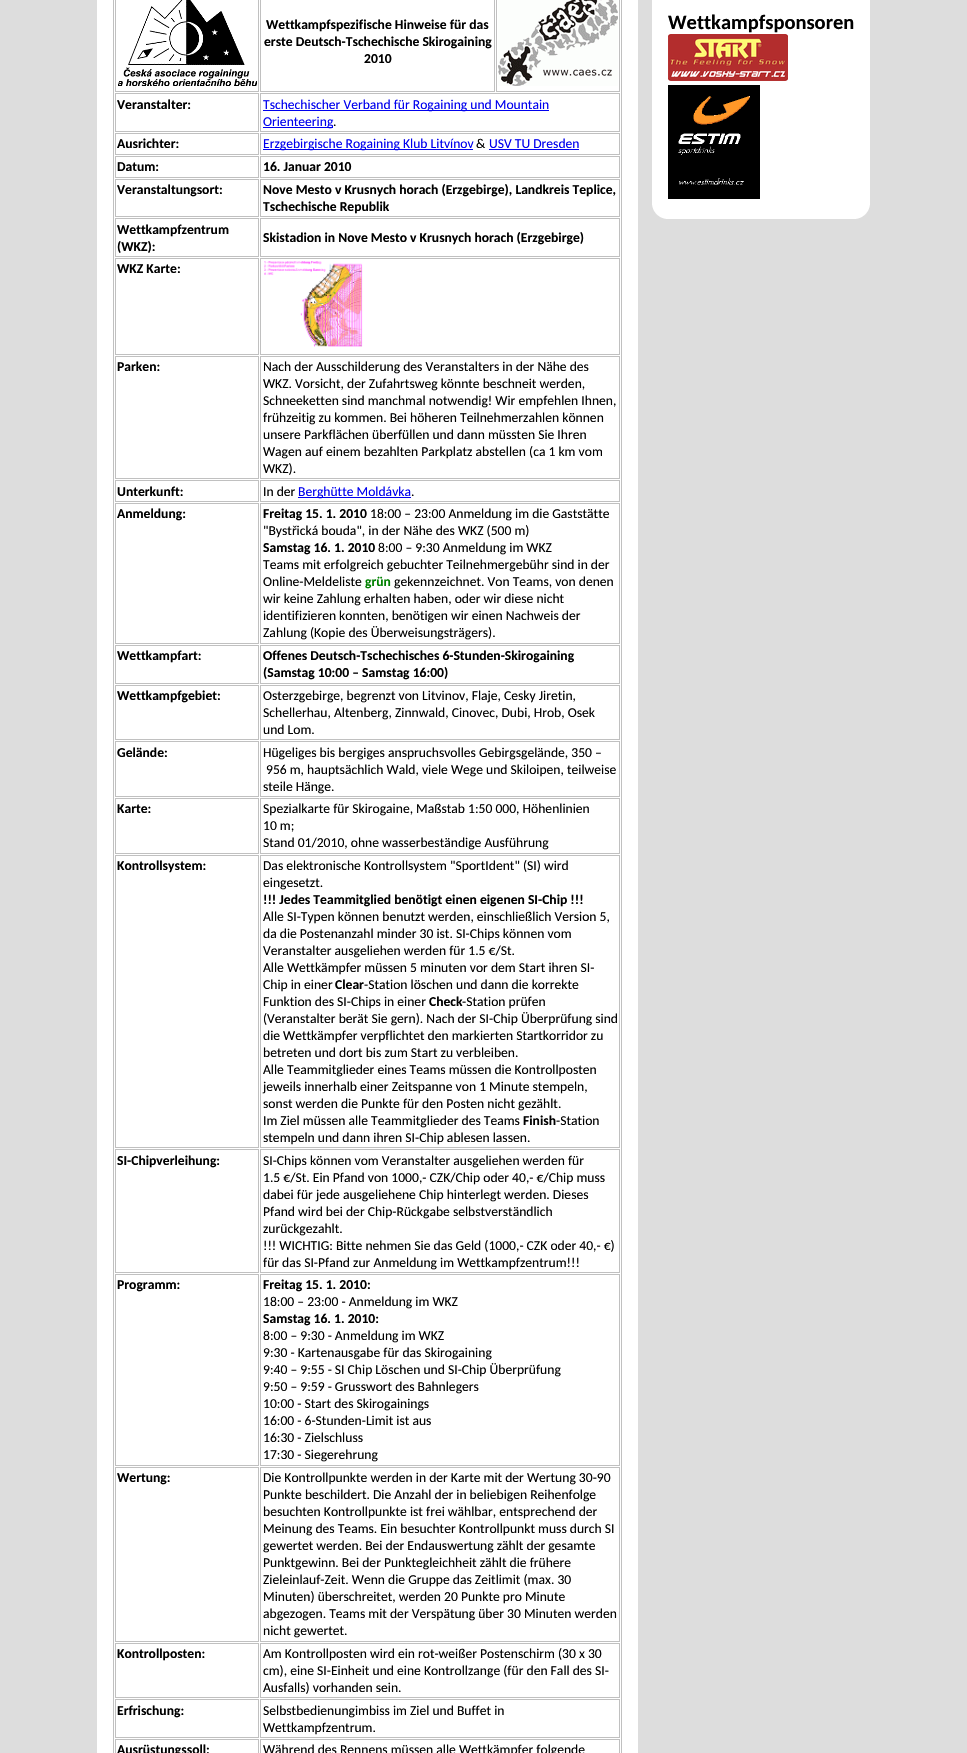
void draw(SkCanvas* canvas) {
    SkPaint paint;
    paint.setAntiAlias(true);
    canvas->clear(0xFFDDDDDD);
    paint.setColor(0xFFFFFFFF);
    canvas->drawRect(SkRect::MakeXYWH(97, 0, 541, 1753), paint);
    paint.setStyle(SkPaint::kStroke_Style);
    paint.setStrokeWidth(1);
    paint.setColor(0xFFC0C0C0);
    canvas->drawRect(SkRect::MakeXYWH(113.5f, -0.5f, 508, 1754), paint);
    canvas->drawRect(SkRect::MakeXYWH(115.5f, -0.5f, 143, 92), paint);
    canvas->drawImageRect(SkImages::DeferredFromEncodedData(SkData::MakeFromFileName("img1.png")), SkRect::MakeXYWH(118, 0, 139, 86), SkSamplingOptions());
    canvas->drawRect(SkRect::MakeXYWH(260.5f, -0.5f, 234, 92), paint);
    SkFont font1(fontMgr->matchFamilyStyle("Carlito", SkFontStyle::Bold()), 13.6f);
    font1.setSubpixel(true);
    paint.setStyle(SkPaint::kFill_Style);
    paint.setColor(0xFF000000);
    canvas->drawString("Wettkampfspezifische Hinweise für das", 266, 29, font1, paint);
    canvas->drawString("erste Deutsch-Tschechische Skirogaining", 264, 46, font1, paint);
    canvas->drawString("2010", 364, 63, font1, paint);
    paint.setStyle(SkPaint::kStroke_Style);
    paint.setColor(0xFFC0C0C0);
    canvas->drawRect(SkRect::MakeXYWH(496.5f, -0.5f, 123, 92), paint);
    canvas->drawImageRect(SkImages::DeferredFromEncodedData(SkData::MakeFromFileName("img2.png")), SkRect::MakeXYWH(498, 0, 120, 86), SkSamplingOptions());
    canvas->drawRect(SkRect::MakeXYWH(115.5f, 93.5f, 143, 38), paint);
    paint.setStyle(SkPaint::kFill_Style);
    paint.setColor(0xFF000000);
    canvas->drawString("Veranstalter:", 117, 109, font1, paint);
    paint.setStyle(SkPaint::kStroke_Style);
    paint.setColor(0xFFC0C0C0);
    canvas->drawRect(SkRect::MakeXYWH(260.5f, 93.5f, 359, 38), paint);
    paint.setStyle(SkPaint::kFill_Style);
    paint.setColor(0xFF0000EE);
    canvas->drawRect(SkRect::MakeXYWH(263, 110, 286, 1), paint);
    SkFont font2(fontMgr->matchFamilyStyle("Carlito", SkFontStyle::Normal()), 13.6f);
    font2.setSubpixel(true);
    canvas->drawString("Tschechischer Verband für Rogaining und Mountain", 263, 109, font2, paint);
    canvas->drawRect(SkRect::MakeXYWH(263, 127, 70, 1), paint);
    canvas->drawString("Orienteering", 263, 126, font2, paint);
    paint.setColor(0xFF000000);
    canvas->drawString(".", 333, 126, font2, paint);
    paint.setStyle(SkPaint::kStroke_Style);
    paint.setColor(0xFFC0C0C0);
    canvas->drawRect(SkRect::MakeXYWH(115.5f, 133.5f, 143, 21), paint);
    paint.setStyle(SkPaint::kFill_Style);
    paint.setColor(0xFF000000);
    canvas->drawString("Ausrichter:", 117, 148, font1, paint);
    paint.setStyle(SkPaint::kStroke_Style);
    paint.setColor(0xFFC0C0C0);
    canvas->drawRect(SkRect::MakeXYWH(260.5f, 133.5f, 359, 21), paint);
    paint.setStyle(SkPaint::kFill_Style);
    paint.setColor(0xFF0000EE);
    canvas->drawRect(SkRect::MakeXYWH(263, 149, 210, 1), paint);
    canvas->drawString("Erzgebirgische Rogaining Klub Litvínov", 263, 148, font2, paint);
    paint.setColor(0xFF000000);
    canvas->drawString("&", 476, 148, font2, paint);
    paint.setColor(0xFF0000EE);
    canvas->drawString("USV TU Dresden", 489, 148, font2, paint);
    canvas->drawRect(SkRect::MakeXYWH(489, 149, 90, 1), paint);
    paint.setStyle(SkPaint::kStroke_Style);
    paint.setColor(0xFFC0C0C0);
    canvas->drawRect(SkRect::MakeXYWH(115.5f, 156.5f, 143, 21), paint);
    paint.setStyle(SkPaint::kFill_Style);
    paint.setColor(0xFF000000);
    canvas->drawString("Datum:", 117, 171, font1, paint);
    paint.setStyle(SkPaint::kStroke_Style);
    paint.setColor(0xFFC0C0C0);
    canvas->drawRect(SkRect::MakeXYWH(260.5f, 156.5f, 359, 21), paint);
    paint.setStyle(SkPaint::kFill_Style);
    paint.setColor(0xFF000000);
    canvas->drawString("16. Januar 2010", 263, 171, font1, paint);
    paint.setStyle(SkPaint::kStroke_Style);
    paint.setColor(0xFFC0C0C0);
    canvas->drawRect(SkRect::MakeXYWH(115.5f, 179.5f, 143, 37), paint);
    paint.setStyle(SkPaint::kFill_Style);
    paint.setColor(0xFF000000);
    canvas->drawString("Veranstaltungsort:", 117, 194, font1, paint);
    paint.setStyle(SkPaint::kStroke_Style);
    paint.setColor(0xFFC0C0C0);
    canvas->drawRect(SkRect::MakeXYWH(260.5f, 179.5f, 359, 37), paint);
    paint.setStyle(SkPaint::kFill_Style);
    paint.setColor(0xFF000000);
    canvas->drawString("Nove Mesto v Krusnych horach (Erzgebirge), Landkreis Teplice,", 263, 194, font1, paint);
    canvas->drawString("Tschechische Republik", 263, 211, font1, paint);
    paint.setStyle(SkPaint::kStroke_Style);
    paint.setColor(0xFFC0C0C0);
    canvas->drawRect(SkRect::MakeXYWH(115.5f, 218.5f, 143, 38), paint);
    paint.setStyle(SkPaint::kFill_Style);
    paint.setColor(0xFF000000);
    canvas->drawString("Wettkampfzentrum", 117, 234, font1, paint);
    canvas->drawString("(WKZ):", 117, 251, font1, paint);
    paint.setStyle(SkPaint::kStroke_Style);
    paint.setColor(0xFFC0C0C0);
    canvas->drawRect(SkRect::MakeXYWH(260.5f, 218.5f, 359, 38), paint);
    paint.setStyle(SkPaint::kFill_Style);
    paint.setColor(0xFF000000);
    canvas->drawString("Skistadion in Nove Mesto v Krusnych horach (Erzgebirge)", 263, 242, font1, paint);
    paint.setStyle(SkPaint::kStroke_Style);
    paint.setColor(0xFFC0C0C0);
    canvas->drawRect(SkRect::MakeXYWH(115.5f, 258.5f, 143, 96), paint);
    paint.setStyle(SkPaint::kFill_Style);
    paint.setColor(0xFF000000);
    canvas->drawString("WKZ Karte:", 117, 273, font1, paint);
    paint.setStyle(SkPaint::kStroke_Style);
    paint.setColor(0xFFC0C0C0);
    canvas->drawRect(SkRect::MakeXYWH(260.5f, 258.5f, 359, 96), paint);
    canvas->drawImageRect(SkImages::DeferredFromEncodedData(SkData::MakeFromFileName("img3.png")), SkRect::MakeXYWH(264, 261, 99, 86), SkSamplingOptions());
    canvas->drawRect(SkRect::MakeXYWH(115.5f, 356.5f, 143, 122), paint);
    paint.setStyle(SkPaint::kFill_Style);
    paint.setColor(0xFF000000);
    canvas->drawString("Parken:", 117, 371, font1, paint);
    paint.setStyle(SkPaint::kStroke_Style);
    paint.setColor(0xFFC0C0C0);
    canvas->drawRect(SkRect::MakeXYWH(260.5f, 356.5f, 359, 122), paint);
    paint.setStyle(SkPaint::kFill_Style);
    paint.setColor(0xFF000000);
    canvas->drawString("Nach der Ausschilderung des Veranstalters in der Nähe des", 263, 371, font2, paint);
    canvas->drawString("WKZ. Vorsicht, der Zufahrtsweg könnte beschneit werden,", 263, 388, font2, paint);
    canvas->drawString("Schneeketten sind manchmal notwendig! Wir empfehlen Ihnen,", 263, 405, font2, paint);
    canvas->drawString("frühzeitig zu kommen. Bei höheren Teilnehmerzahlen können", 263, 422, font2, paint);
    canvas->drawString("unsere Parkflächen überfüllen und dann müssten Sie Ihren", 263, 439, font2, paint);
    canvas->drawString("Wagen auf einem bezahlten Parkplatz abstellen (ca 1 km vom", 263, 456, font2, paint);
    canvas->drawString("WKZ).", 263, 473, font2, paint);
    paint.setStyle(SkPaint::kStroke_Style);
    paint.setColor(0xFFC0C0C0);
    canvas->drawRect(SkRect::MakeXYWH(115.5f, 480.5f, 143, 21), paint);
    paint.setStyle(SkPaint::kFill_Style);
    paint.setColor(0xFF000000);
    canvas->drawString("Unterkunft:", 117, 496, font1, paint);
    paint.setStyle(SkPaint::kStroke_Style);
    paint.setColor(0xFFC0C0C0);
    canvas->drawRect(SkRect::MakeXYWH(260.5f, 480.5f, 359, 21), paint);
    paint.setStyle(SkPaint::kFill_Style);
    paint.setColor(0xFF000000);
    canvas->drawString("In der", 263, 496, font2, paint);
    paint.setColor(0xFF0000EE);
    canvas->drawRect(SkRect::MakeXYWH(298, 497, 113, 1), paint);
    canvas->drawString("Berghütte Moldávka", 298, 496, font2, paint);
    paint.setColor(0xFF000000);
    canvas->drawString(".", 411, 496, font2, paint);
    paint.setStyle(SkPaint::kStroke_Style);
    paint.setColor(0xFFC0C0C0);
    canvas->drawRect(SkRect::MakeXYWH(115.5f, 503.5f, 143, 140), paint);
    paint.setStyle(SkPaint::kFill_Style);
    paint.setColor(0xFF000000);
    canvas->drawString("Anmeldung:", 117, 518, font1, paint);
    paint.setStyle(SkPaint::kStroke_Style);
    paint.setColor(0xFFC0C0C0);
    canvas->drawRect(SkRect::MakeXYWH(260.5f, 503.5f, 359, 140), paint);
    paint.setStyle(SkPaint::kFill_Style);
    paint.setColor(0xFF000000);
    canvas->drawString("Freitag 15. 1. 2010", 263, 518, font1, paint);
    canvas->drawString("18:00 – 23:00 Anmeldung im die Gaststätte", 370, 518, font2, paint);
    canvas->drawString("\"Bystřická bouda\", in der Nähe des WKZ (500 m)", 263, 535, font2, paint);
    canvas->drawString("Samstag 16. 1. 2010", 263, 552, font1, paint);
    canvas->drawString("8:00 – 9:30 Anmeldung im WKZ", 378, 552, font2, paint);
    canvas->drawString("Teams mit erfolgreich gebuchter Teilnehmergebühr sind in der", 263, 569, font2, paint);
    canvas->drawString("Online-Meldeliste", 263, 586, font2, paint);
    paint.setColor(0xFF008000);
    canvas->drawString("grün", 365, 586, font1, paint);
    paint.setColor(0xFF000000);
    canvas->drawString("gekennzeichnet. Von Teams, von denen", 394, 586, font2, paint);
    canvas->drawString("wir keine Zahlung erhalten haben, oder wir diese nicht", 263, 603, font2, paint);
    canvas->drawString("identifizieren konnten, benötigen wir einen Nachweis der", 263, 620, font2, paint);
    canvas->drawString("Zahlung (Kopie des Überweisungsträgers).", 263, 637, font2, paint);
    paint.setStyle(SkPaint::kStroke_Style);
    paint.setColor(0xFFC0C0C0);
    canvas->drawRect(SkRect::MakeXYWH(115.5f, 645.5f, 143, 38), paint);
    paint.setStyle(SkPaint::kFill_Style);
    paint.setColor(0xFF000000);
    canvas->drawString("Wettkampfart:", 117, 660, font1, paint);
    paint.setStyle(SkPaint::kStroke_Style);
    paint.setColor(0xFFC0C0C0);
    canvas->drawRect(SkRect::MakeXYWH(260.5f, 645.5f, 359, 38), paint);
    paint.setStyle(SkPaint::kFill_Style);
    paint.setColor(0xFF000000);
    canvas->drawString("Offenes Deutsch-Tschechisches 6-Stunden-Skirogaining", 263, 660, font1, paint);
    canvas->drawString("(Samstag 10:00 – Samstag 16:00)", 263, 677, font1, paint);
    paint.setStyle(SkPaint::kStroke_Style);
    paint.setColor(0xFFC0C0C0);
    canvas->drawRect(SkRect::MakeXYWH(115.5f, 685.5f, 143, 54), paint);
    paint.setStyle(SkPaint::kFill_Style);
    paint.setColor(0xFF000000);
    canvas->drawString("Wettkampfgebiet:", 117, 700, font1, paint);
    paint.setStyle(SkPaint::kStroke_Style);
    paint.setColor(0xFFC0C0C0);
    canvas->drawRect(SkRect::MakeXYWH(260.5f, 685.5f, 359, 54), paint);
    paint.setStyle(SkPaint::kFill_Style);
    paint.setColor(0xFF000000);
    canvas->drawString("Osterzgebirge, begrenzt von Litvinov, Flaje, Cesky Jiretin,", 263, 700, font2, paint);
    canvas->drawString("Schellerhau, Altenberg, Zinnwald, Cinovec, Dubi, Hrob, Osek", 263, 717, font2, paint);
    canvas->drawString("und Lom.", 263, 734, font2, paint);
    paint.setStyle(SkPaint::kStroke_Style);
    paint.setColor(0xFFC0C0C0);
    canvas->drawRect(SkRect::MakeXYWH(115.5f, 741.5f, 143, 55), paint);
    paint.setStyle(SkPaint::kFill_Style);
    paint.setColor(0xFF000000);
    canvas->drawString("Gelände:", 117, 757, font1, paint);
    paint.setStyle(SkPaint::kStroke_Style);
    paint.setColor(0xFFC0C0C0);
    canvas->drawRect(SkRect::MakeXYWH(260.5f, 741.5f, 359, 55), paint);
    paint.setStyle(SkPaint::kFill_Style);
    paint.setColor(0xFF000000);
    canvas->drawString("Hügeliges bis bergiges anspruchsvolles Gebirgsgelände, 350 –", 263, 757, font2, paint);
    canvas->drawString("956 m, hauptsächlich Wald, viele Wege und Skiloipen, teilweise", 266, 774, font2, paint);
    canvas->drawString("steile Hänge.", 263, 791, font2, paint);
    paint.setStyle(SkPaint::kStroke_Style);
    paint.setColor(0xFFC0C0C0);
    canvas->drawRect(SkRect::MakeXYWH(115.5f, 798.5f, 143, 55), paint);
    paint.setStyle(SkPaint::kFill_Style);
    paint.setColor(0xFF000000);
    canvas->drawString("Karte:", 117, 813, font1, paint);
    paint.setStyle(SkPaint::kStroke_Style);
    paint.setColor(0xFFC0C0C0);
    canvas->drawRect(SkRect::MakeXYWH(260.5f, 798.5f, 359, 55), paint);
    paint.setStyle(SkPaint::kFill_Style);
    paint.setColor(0xFF000000);
    canvas->drawString("Spezialkarte für Skirogaine, Maßstab 1:50 000, Höhenlinien", 263, 813, font2, paint);
    canvas->drawString("10 m;", 263, 830, font2, paint);
    canvas->drawString("Stand 01/2010, ohne wasserbeständige Ausführung", 263, 847, font2, paint);
    paint.setStyle(SkPaint::kStroke_Style);
    paint.setColor(0xFFC0C0C0);
    canvas->drawRect(SkRect::MakeXYWH(115.5f, 855.5f, 143, 292), paint);
    paint.setStyle(SkPaint::kFill_Style);
    paint.setColor(0xFF000000);
    canvas->drawString("Kontrollsystem:", 117, 870, font1, paint);
    paint.setStyle(SkPaint::kStroke_Style);
    paint.setColor(0xFFC0C0C0);
    canvas->drawRect(SkRect::MakeXYWH(260.5f, 855.5f, 359, 292), paint);
    paint.setStyle(SkPaint::kFill_Style);
    paint.setColor(0xFF000000);
    canvas->drawString("Das elektronische Kontrollsystem \"SportIdent\" (SI) wird", 263, 870, font2, paint);
    canvas->drawString("eingesetzt.", 263, 887, font2, paint);
    canvas->drawString("!!! Jedes Teammitglied benötigt einen eigenen SI-Chip !!!", 263, 904, font1, paint);
    canvas->drawString("Alle SI-Typen können benutzt werden, einschließlich Version 5,", 263, 921, font2, paint);
    canvas->drawString("da die Postenanzahl minder 30 ist. SI-Chips können vom", 263, 938, font2, paint);
    canvas->drawString("Veranstalter ausgeliehen werden für 1.5 €/St.", 263, 955, font2, paint);
    canvas->drawString("Alle Wettkämpfer müssen 5 minuten vor dem Start ihren SI-", 263, 972, font2, paint);
    canvas->drawString("Chip in einer", 263, 989, font2, paint);
    canvas->drawString("Clear", 335, 989, font1, paint);
    canvas->drawString("-Station löschen und dann die korrekte", 364, 989, font2, paint);
    canvas->drawString("Funktion des SI-Chips in einer", 263, 1006, font2, paint);
    canvas->drawString("Check", 429, 1006, font1, paint);
    canvas->drawString("-Station prüfen", 462, 1006, font2, paint);
    canvas->drawString("(Veranstalter berät Sie gern). Nach der SI-Chip Überprüfung sind", 263, 1023, font2, paint);
    canvas->drawString("die Wettkämpfer verpflichtet den markierten Startkorridor zu", 263, 1040, font2, paint);
    canvas->drawString("betreten und dort bis zum Start zu verbleiben.", 263, 1057, font2, paint);
    canvas->drawString("Alle Teammitglieder eines Teams müssen die Kontrollposten", 263, 1074, font2, paint);
    canvas->drawString("jeweils innerhalb einer Zeitspanne von 1 Minute stempeln,", 263, 1091, font2, paint);
    canvas->drawString("sonst werden die Punkte für den Posten nicht gezählt.", 263, 1108, font2, paint);
    canvas->drawString("Im Ziel müssen alle Teammitglieder des Teams", 263, 1125, font2, paint);
    canvas->drawString("Finish", 523, 1125, font1, paint);
    canvas->drawString("-Station", 556, 1125, font2, paint);
    canvas->drawString("stempeln und dann ihren SI-Chip ablesen lassen.", 263, 1142, font2, paint);
    paint.setStyle(SkPaint::kStroke_Style);
    paint.setColor(0xFFC0C0C0);
    canvas->drawRect(SkRect::MakeXYWH(115.5f, 1149.5f, 143, 123), paint);
    paint.setStyle(SkPaint::kFill_Style);
    paint.setColor(0xFF000000);
    canvas->drawString("SI-Chipverleihung:", 117, 1165, font1, paint);
    paint.setStyle(SkPaint::kStroke_Style);
    paint.setColor(0xFFC0C0C0);
    canvas->drawRect(SkRect::MakeXYWH(260.5f, 1149.5f, 359, 123), paint);
    paint.setStyle(SkPaint::kFill_Style);
    paint.setColor(0xFF000000);
    canvas->drawString("SI-Chips können vom Veranstalter ausgeliehen werden für", 263, 1165, font2, paint);
    canvas->drawString("1.5 €/St. Ein Pfand von 1000,- CZK/Chip oder 40,- €/Chip muss", 263, 1182, font2, paint);
    canvas->drawString("dabei für jede ausgeliehene Chip hinterlegt werden. Dieses", 263, 1199, font2, paint);
    canvas->drawString("Pfand wird bei der Chip-Rückgabe selbstverständlich", 263, 1216, font2, paint);
    canvas->drawString("zurückgezahlt.", 263, 1233, font2, paint);
    canvas->drawString("!!! WICHTIG: Bitte nehmen Sie das Geld (1000,- CZK oder 40,- €)", 263, 1250, font2, paint);
    canvas->drawString("für das SI-Pfand zur Anmeldung im Wettkampfzentrum!!!", 263, 1267, font2, paint);
    paint.setStyle(SkPaint::kStroke_Style);
    paint.setColor(0xFFC0C0C0);
    canvas->drawRect(SkRect::MakeXYWH(115.5f, 1274.5f, 143, 191), paint);
    paint.setStyle(SkPaint::kFill_Style);
    paint.setColor(0xFF000000);
    canvas->drawString("Programm:", 117, 1289, font1, paint);
    paint.setStyle(SkPaint::kStroke_Style);
    paint.setColor(0xFFC0C0C0);
    canvas->drawRect(SkRect::MakeXYWH(260.5f, 1274.5f, 359, 191), paint);
    paint.setStyle(SkPaint::kFill_Style);
    paint.setColor(0xFF000000);
    canvas->drawString("Freitag 15. 1. 2010:", 263, 1289, font1, paint);
    canvas->drawString("18:00 – 23:00 - Anmeldung im WKZ", 263, 1306, font2, paint);
    canvas->drawString("Samstag 16. 1. 2010:", 263, 1323, font1, paint);
    canvas->drawString("8:00 – 9:30 - Anmeldung im WKZ", 263, 1340, font2, paint);
    canvas->drawString("9:30 - Kartenausgabe für das Skirogaining", 263, 1357, font2, paint);
    canvas->drawString("9:40 – 9:55 - SI Chip Löschen und SI-Chip Überprüfung", 263, 1374, font2, paint);
    canvas->drawString("9:50 – 9:59 - Grusswort des Bahnlegers", 263, 1391, font2, paint);
    canvas->drawString("10:00 - Start des Skirogainings", 263, 1408, font2, paint);
    canvas->drawString("16:00 - 6-Stunden-Limit ist aus", 263, 1425, font2, paint);
    canvas->drawString("16:30 - Zielschluss", 263, 1442, font2, paint);
    canvas->drawString("17:30 - Siegerehrung", 263, 1459, font2, paint);
    paint.setStyle(SkPaint::kStroke_Style);
    paint.setColor(0xFFC0C0C0);
    canvas->drawRect(SkRect::MakeXYWH(115.5f, 1467.5f, 143, 174), paint);
    paint.setStyle(SkPaint::kFill_Style);
    paint.setColor(0xFF000000);
    canvas->drawString("Wertung:", 117, 1482, font1, paint);
    paint.setStyle(SkPaint::kStroke_Style);
    paint.setColor(0xFFC0C0C0);
    canvas->drawRect(SkRect::MakeXYWH(260.5f, 1467.5f, 359, 174), paint);
    paint.setStyle(SkPaint::kFill_Style);
    paint.setColor(0xFF000000);
    canvas->drawString("Die Kontrollpunkte werden in der Karte mit der Wertung 30-90", 263, 1482, font2, paint);
    canvas->drawString("Punkte beschildert. Die Anzahl der in beliebigen Reihenfolge", 263, 1499, font2, paint);
    canvas->drawString("besuchten Kontrollpunkte ist frei wählbar, entsprechend der", 263, 1516, font2, paint);
    canvas->drawString("Meinung des Teams. Ein besuchter Kontrollpunkt muss durch SI", 263, 1533, font2, paint);
    canvas->drawString("gewertet werden. Bei der Endauswertung zählt der gesamte", 263, 1550, font2, paint);
    canvas->drawString("Punktgewinn. Bei der Punktegleichheit zählt die frühere", 263, 1567, font2, paint);
    canvas->drawString("Zieleinlauf-Zeit. Wenn die Gruppe das Zeitlimit (max. 30", 263, 1584, font2, paint);
    canvas->drawString("Minuten) überschreitet, werden 20 Punkte pro Minute", 263, 1601, font2, paint);
    canvas->drawString("abgezogen. Teams mit der Verspätung über 30 Minuten werden", 263, 1618, font2, paint);
    canvas->drawString("nicht gewertet.", 263, 1635, font2, paint);
    paint.setStyle(SkPaint::kStroke_Style);
    paint.setColor(0xFFC0C0C0);
    canvas->drawRect(SkRect::MakeXYWH(115.5f, 1643.5f, 143, 54), paint);
    paint.setStyle(SkPaint::kFill_Style);
    paint.setColor(0xFF000000);
    canvas->drawString("Kontrollposten:", 117, 1658, font1, paint);
    paint.setStyle(SkPaint::kStroke_Style);
    paint.setColor(0xFFC0C0C0);
    canvas->drawRect(SkRect::MakeXYWH(260.5f, 1643.5f, 359, 54), paint);
    paint.setStyle(SkPaint::kFill_Style);
    paint.setColor(0xFF000000);
    canvas->drawString("Am Kontrollposten wird ein rot-weißer Postenschirm (30 x 30", 263, 1658, font2, paint);
    canvas->drawString("cm), eine SI-Einheit und eine Kontrollzange (für den Fall des SI-", 263, 1675, font2, paint);
    canvas->drawString("Ausfalls) vorhanden sein.", 263, 1692, font2, paint);
    paint.setStyle(SkPaint::kStroke_Style);
    paint.setColor(0xFFC0C0C0);
    canvas->drawRect(SkRect::MakeXYWH(115.5f, 1699.5f, 143, 38), paint);
    paint.setStyle(SkPaint::kFill_Style);
    paint.setColor(0xFF000000);
    canvas->drawString("Erfrischung:", 117, 1715, font1, paint);
    paint.setStyle(SkPaint::kStroke_Style);
    paint.setColor(0xFFC0C0C0);
    canvas->drawRect(SkRect::MakeXYWH(260.5f, 1699.5f, 359, 38), paint);
    paint.setStyle(SkPaint::kFill_Style);
    paint.setColor(0xFF000000);
    canvas->drawString("Selbstbedienungimbiss im Ziel und Buffet in", 263, 1715, font2, paint);
    canvas->drawString("Wettkampfzentrum.", 263, 1732, font2, paint);
    paint.setStyle(SkPaint::kStroke_Style);
    paint.setColor(0xFFC0C0C0);
    canvas->drawRect(SkRect::MakeXYWH(115.5f, 1739.5f, 143, 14), paint);
    paint.setStyle(SkPaint::kFill_Style);
    paint.setColor(0xFF000000);
    canvas->drawString("Ausrüstungssoll:", 117, 1754, font1, paint);
    paint.setStyle(SkPaint::kStroke_Style);
    paint.setColor(0xFFC0C0C0);
    canvas->drawRect(SkRect::MakeXYWH(260.5f, 1739.5f, 359, 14), paint);
    paint.setStyle(SkPaint::kFill_Style);
    paint.setColor(0xFF000000);
    canvas->drawString("Während des Rennens müssen alle Wettkämpfer folgende", 263, 1754, font2, paint);
    paint.setColor(0xFFFFFFFF);
    canvas->drawRect(SkRect::MakeXYWH(652, 0, 218, 219), paint);
    SkFont font3(fontMgr->matchFamilyStyle("Carlito", SkFontStyle::Bold()), 20.5f);
    font3.setSubpixel(true);
    paint.setColor(0xFF000000);
    canvas->drawString("Wettkampfsponsoren", 668, 29, font3, paint);
    canvas->drawImageRect(SkImages::DeferredFromEncodedData(SkData::MakeFromFileName("img4.png")), SkRect::MakeXYWH(668, 34, 120, 47), SkSamplingOptions());
    canvas->drawImageRect(SkImages::DeferredFromEncodedData(SkData::MakeFromFileName("img5.png")), SkRect::MakeXYWH(668, 85, 92, 114), SkSamplingOptions());
    canvas->drawImageRect(SkImages::DeferredFromEncodedData(SkData::MakeFromFileName("img6.png")), SkRect::MakeXYWH(652, 205, 14, 14), SkSamplingOptions());
    canvas->drawImageRect(SkImages::DeferredFromEncodedData(SkData::MakeFromFileName("img7.png")), SkRect::MakeXYWH(856, 205, 14, 14), SkSamplingOptions());
}
